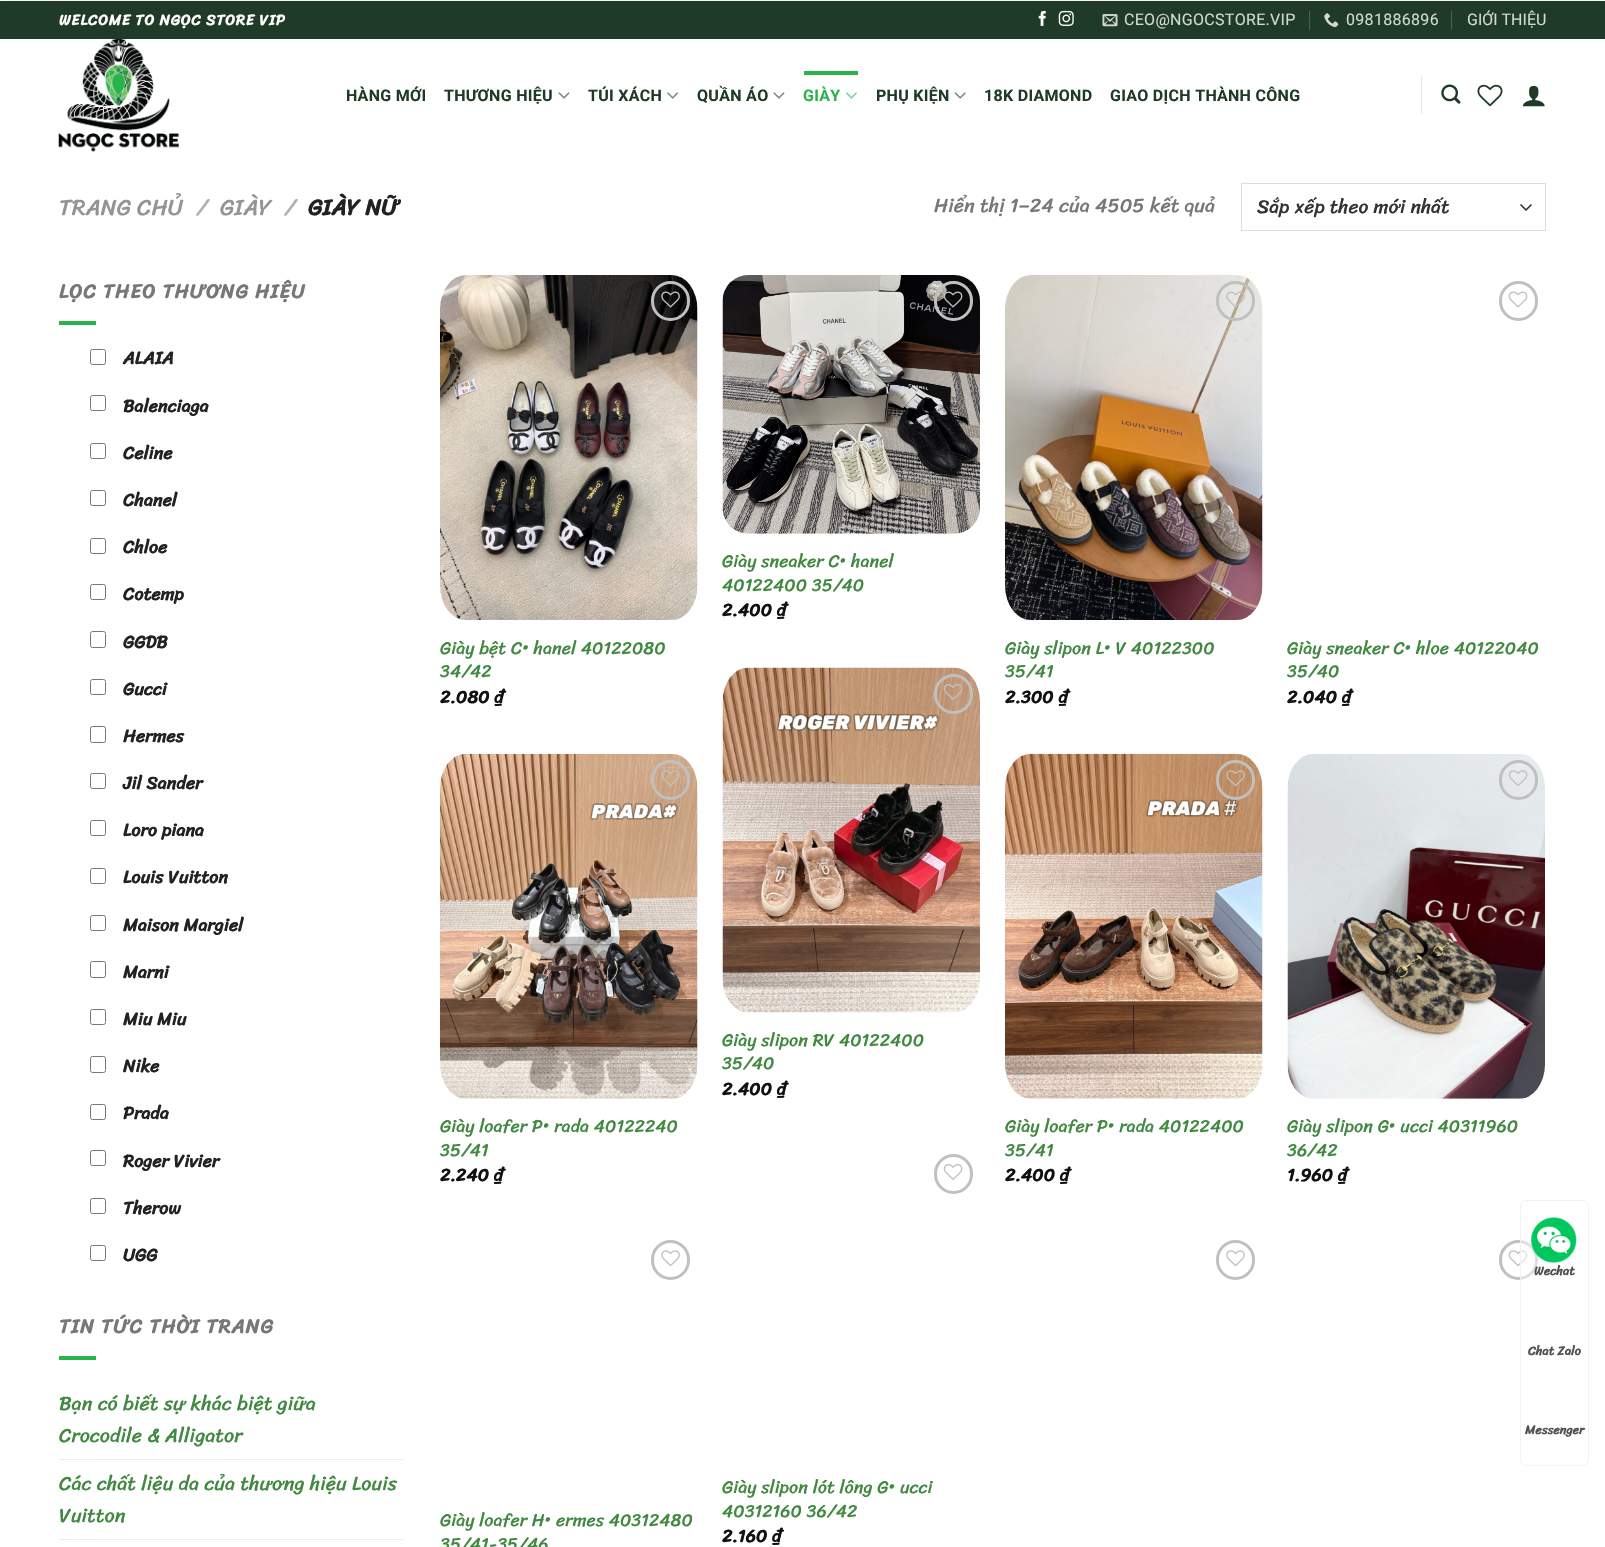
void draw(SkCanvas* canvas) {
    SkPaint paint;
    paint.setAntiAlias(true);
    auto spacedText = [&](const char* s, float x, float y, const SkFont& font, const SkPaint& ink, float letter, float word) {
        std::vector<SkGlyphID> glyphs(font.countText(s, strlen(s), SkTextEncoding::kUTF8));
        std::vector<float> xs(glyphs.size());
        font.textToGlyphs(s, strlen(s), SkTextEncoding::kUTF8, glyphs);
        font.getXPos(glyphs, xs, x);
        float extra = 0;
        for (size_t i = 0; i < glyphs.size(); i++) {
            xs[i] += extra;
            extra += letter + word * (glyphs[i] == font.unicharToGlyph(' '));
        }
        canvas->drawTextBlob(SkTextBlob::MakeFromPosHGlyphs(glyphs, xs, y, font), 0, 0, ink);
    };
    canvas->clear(0xFFFFFFFF);
    paint.setColor(0x3B000000);
    paint.setMaskFilter(SkMaskFilter::MakeBlur(kNormal_SkBlurStyle, 4));
    canvas->drawRect(SkRect::MakeXYWH(0, 5, 1605, 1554), paint);
    paint.setMaskFilter(nullptr);
    paint.setColor(0xFFFFFFFF);
    canvas->drawRect(SkRect::MakeXYWH(0, 39, 1605, 1508), paint);
    paint.setColor(0xFF1F3A27);
    canvas->drawRect(SkRect::MakeXYWH(0, 1, 1605, 38), paint);
    SkFont font1(fontMgr->matchFamilyStyle("Sriracha", SkFontStyle::Bold()), 15);
    font1.setSubpixel(true);
    paint.setColor(0xFFFFFFFF);
    spacedText("WELCOME TO NGỌC STORE VIP", 59, 25, font1, paint, 0.75f, 0);
    canvas->drawImageRect(SkImages::DeferredFromEncodedData(SkData::MakeFromFileName("img1.png")), SkRect::MakeXYWH(1038, 10, 8, 16), SkSamplingOptions());
    canvas->drawImageRect(SkImages::DeferredFromEncodedData(SkData::MakeFromFileName("img2.png")), SkRect::MakeXYWH(1058, 10, 16, 16), SkSamplingOptions());
    canvas->drawImageRect(SkImages::DeferredFromEncodedData(SkData::MakeFromFileName("img3.png")), SkRect::MakeXYWH(1102, 14, 16, 13), SkSamplingOptions());
    SkFont font2(fontMgr->matchFamilyStyle("Roboto", SkFontStyle::Normal()), 16);
    font2.setSubpixel(true);
    paint.setColor(0xFFD2D8D4);
    spacedText("CEO@NGOCSTORE.VIP", 1124, 25, font2, paint, 0.3f, 0);
    paint.setColor(0xFF4C6152);
    canvas->drawRect(SkRect::MakeXYWH(1309, 11, 1, 19), paint);
    canvas->drawImageRect(SkImages::DeferredFromEncodedData(SkData::MakeFromFileName("img4.png")), SkRect::MakeXYWH(1324, 13, 15, 15), SkSamplingOptions());
    paint.setColor(0xFFD2D8D4);
    spacedText("0981886896", 1346, 25, font2, paint, 0.3f, 0);
    paint.setColor(0xFF4C6152);
    canvas->drawRect(SkRect::MakeXYWH(1451, 11, 1, 19), paint);
    paint.setColor(0xFFD2D8D4);
    canvas->drawString("GIỚI THIỆU", 1467, 25, font2, paint);
    canvas->drawImageRect(SkImages::DeferredFromEncodedData(SkData::MakeFromFileName("img5.png")), SkRect::MakeXYWH(58, 39, 121, 113), SkSamplingOptions());
    SkFont font3(fontMgr->matchFamilyStyle("Roboto", SkFontStyle::Bold()), 16);
    font3.setSubpixel(true);
    paint.setColor(0xFF1F3A27);
    spacedText("HÀNG MỚI", 346, 101, font3, paint, 0.3f, 0);
    spacedText("THƯƠNG HIỆU", 444, 101, font3, paint, 0.3f, 0);
    canvas->drawImageRect(SkImages::DeferredFromEncodedData(SkData::MakeFromFileName("img6.png")), SkRect::MakeXYWH(558, 92, 12, 7), SkSamplingOptions());
    spacedText("TÚI XÁCH", 588, 101, font3, paint, 0.3f, 0);
    canvas->drawImageRect(SkImages::DeferredFromEncodedData(SkData::MakeFromFileName("img7.png")), SkRect::MakeXYWH(667, 92, 12, 7), SkSamplingOptions());
    spacedText("QUẦN ÁO", 697, 101, font3, paint, 0.3f, 0);
    canvas->drawImageRect(SkImages::DeferredFromEncodedData(SkData::MakeFromFileName("img6.png")), SkRect::MakeXYWH(773, 92, 12, 7), SkSamplingOptions());
    paint.setColor(0xFF29B34B);
    canvas->drawRect(SkRect::MakeXYWH(804, 71, 54, 4), paint);
    spacedText("GIÀY", 803, 101, font3, paint, 0.3f, 0);
    canvas->drawImageRect(SkImages::DeferredFromEncodedData(SkData::MakeFromFileName("img8.png")), SkRect::MakeXYWH(845, 92, 12, 7), SkSamplingOptions());
    paint.setColor(0xFF1F3A27);
    spacedText("PHỤ KIỆN", 876, 101, font3, paint, 0.3f, 0);
    canvas->drawImageRect(SkImages::DeferredFromEncodedData(SkData::MakeFromFileName("img9.png")), SkRect::MakeXYWH(954, 92, 12, 7), SkSamplingOptions());
    spacedText("18K DIAMOND", 984, 101, font3, paint, 0.3f, 0);
    spacedText("GIAO DỊCH THÀNH CÔNG", 1110, 101, font3, paint, 0.3f, 0);
    paint.setColor(0xFFE6E6E6);
    canvas->drawRect(SkRect::MakeXYWH(1421, 76, 1, 38), paint);
    canvas->drawImageRect(SkImages::DeferredFromEncodedData(SkData::MakeFromFileName("img10.png")), SkRect::MakeXYWH(1441, 84, 20, 20), SkSamplingOptions());
    canvas->drawImageRect(SkImages::DeferredFromEncodedData(SkData::MakeFromFileName("img11.png")), SkRect::MakeXYWH(1477, 84, 26, 23), SkSamplingOptions());
    canvas->drawImageRect(SkImages::DeferredFromEncodedData(SkData::MakeFromFileName("img12.png")), SkRect::MakeXYWH(1522, 85, 23, 22), SkSamplingOptions());
    SkFont font4(fontMgr->matchFamilyStyle("Sriracha", SkFontStyle::Normal()), 23);
    font4.setSubpixel(true);
    paint.setColor(0xFF949494);
    canvas->drawString("TRANG CHỦ", 59, 215, font4, paint);
    paint.setColor(0xFFB2B2B2);
    canvas->drawString("/", 196, 215, font4, paint);
    paint.setColor(0xFF949494);
    canvas->drawString("GIÀY", 220, 215, font4, paint);
    paint.setColor(0xFFB2B2B2);
    canvas->drawString("/", 284, 215, font4, paint);
    SkFont font5(fontMgr->matchFamilyStyle("Sriracha", SkFontStyle::Bold()), 23);
    font5.setSubpixel(true);
    paint.setColor(0xFF222222);
    canvas->drawString("GIÀY NỮ", 308, 215, font5, paint);
    SkFont font6(fontMgr->matchFamilyStyle("Sriracha", SkFontStyle::Normal()), 20);
    font6.setSubpixel(true);
    paint.setColor(0xFF777777);
    canvas->drawString("Hiển thị 1–24 của 4505 kết quả", 934, 212, font6, paint);
    paint.setStyle(SkPaint::kStroke_Style);
    paint.setStrokeWidth(1.7f);
    paint.setStrokeCap(SkPaint::kRound_Cap);
    paint.setStrokeJoin(SkPaint::kRound_Join);
    paint.setColor(0xFF333333);
    canvas->drawPath(SkPathBuilder().moveTo(1521, 205).lineTo(1526, 210).lineTo(1531, 205).detach(), paint);
    paint.setStrokeWidth(1);
    paint.setStrokeCap(SkPaint::kButt_Cap);
    paint.setStrokeJoin(SkPaint::kMiter_Join);
    paint.setColor(0xFFDDDDDD);
    canvas->drawRect(SkRect::MakeXYWH(1241.5f, 183.5f, 304, 47), paint);
    SkFont font7(fontMgr->matchFamilyStyle("Sriracha", SkFontStyle::Normal()), 19.5f);
    font7.setSubpixel(true);
    paint.setStyle(SkPaint::kFill_Style);
    paint.setColor(0xFF333333);
    canvas->drawString("Sắp xếp theo mới nhất", 1257, 213, font7, paint);
    SkFont font8(fontMgr->matchFamilyStyle("Sriracha", SkFontStyle::Bold()), 20);
    font8.setSubpixel(true);
    paint.setColor(0xFF777777);
    spacedText("LỌC THEO THƯƠNG HIỆU", 59, 298, font8, paint, 1, 0);
    paint.setColor(0xFF29B34B);
    canvas->drawRect(SkRect::MakeXYWH(59, 321, 37, 4), paint);
    paint.setStyle(SkPaint::kStroke_Style);
    paint.setColor(0xFF767676);
    canvas->drawRoundRect(SkRect::MakeXYWH(90.5f, 349.5f, 15, 15), 2, 2, paint);
    SkFont font9(fontMgr->matchFamilyStyle("Sriracha", SkFontStyle::Bold()), 18);
    font9.setSubpixel(true);
    paint.setStyle(SkPaint::kFill_Style);
    paint.setColor(0xFF222222);
    canvas->drawString("ALAIA", 123, 364, font9, paint);
    paint.setStyle(SkPaint::kStroke_Style);
    paint.setColor(0xFF767676);
    canvas->drawRoundRect(SkRect::MakeXYWH(90.5f, 395.5f, 15, 15), 2, 2, paint);
    paint.setStyle(SkPaint::kFill_Style);
    paint.setColor(0xFF222222);
    canvas->drawString("Balenciaga", 123, 412, font9, paint);
    paint.setStyle(SkPaint::kStroke_Style);
    paint.setColor(0xFF767676);
    canvas->drawRoundRect(SkRect::MakeXYWH(90.5f, 443.5f, 15, 15), 2, 2, paint);
    paint.setStyle(SkPaint::kFill_Style);
    paint.setColor(0xFF222222);
    canvas->drawString("Celine", 123, 459, font9, paint);
    paint.setStyle(SkPaint::kStroke_Style);
    paint.setColor(0xFF767676);
    canvas->drawRoundRect(SkRect::MakeXYWH(90.5f, 490.5f, 15, 15), 2, 2, paint);
    paint.setStyle(SkPaint::kFill_Style);
    paint.setColor(0xFF222222);
    canvas->drawString("Chanel", 123, 506, font9, paint);
    paint.setStyle(SkPaint::kStroke_Style);
    paint.setColor(0xFF767676);
    canvas->drawRoundRect(SkRect::MakeXYWH(90.5f, 538.5f, 15, 15), 2, 2, paint);
    paint.setStyle(SkPaint::kFill_Style);
    paint.setColor(0xFF222222);
    canvas->drawString("Chloe", 123, 553, font9, paint);
    paint.setStyle(SkPaint::kStroke_Style);
    paint.setColor(0xFF767676);
    canvas->drawRoundRect(SkRect::MakeXYWH(90.5f, 584.5f, 15, 15), 2, 2, paint);
    paint.setStyle(SkPaint::kFill_Style);
    paint.setColor(0xFF222222);
    canvas->drawString("Cotemp", 123, 600, font9, paint);
    paint.setStyle(SkPaint::kStroke_Style);
    paint.setColor(0xFF767676);
    canvas->drawRoundRect(SkRect::MakeXYWH(90.5f, 631.5f, 15, 16), 2, 2, paint);
    paint.setStyle(SkPaint::kFill_Style);
    paint.setColor(0xFF222222);
    canvas->drawString("GGDB", 123, 648, font9, paint);
    paint.setStyle(SkPaint::kStroke_Style);
    paint.setColor(0xFF767676);
    canvas->drawRoundRect(SkRect::MakeXYWH(90.5f, 679.5f, 15, 15), 2, 2, paint);
    paint.setStyle(SkPaint::kFill_Style);
    paint.setColor(0xFF222222);
    canvas->drawString("Gucci", 123, 695, font9, paint);
    paint.setStyle(SkPaint::kStroke_Style);
    paint.setColor(0xFF767676);
    canvas->drawRoundRect(SkRect::MakeXYWH(90.5f, 726.5f, 15, 16), 2, 2, paint);
    paint.setStyle(SkPaint::kFill_Style);
    paint.setColor(0xFF222222);
    canvas->drawString("Hermes", 123, 742, font9, paint);
    paint.setStyle(SkPaint::kStroke_Style);
    paint.setColor(0xFF767676);
    canvas->drawRoundRect(SkRect::MakeXYWH(90.5f, 773.5f, 15, 15), 2, 2, paint);
    paint.setStyle(SkPaint::kFill_Style);
    paint.setColor(0xFF222222);
    canvas->drawString("Jil Sander", 123, 789, font9, paint);
    paint.setStyle(SkPaint::kStroke_Style);
    paint.setColor(0xFF767676);
    canvas->drawRoundRect(SkRect::MakeXYWH(90.5f, 820.5f, 15, 15), 2, 2, paint);
    paint.setStyle(SkPaint::kFill_Style);
    paint.setColor(0xFF222222);
    canvas->drawString("Loro piana", 123, 836, font9, paint);
    paint.setStyle(SkPaint::kStroke_Style);
    paint.setColor(0xFF767676);
    canvas->drawRoundRect(SkRect::MakeXYWH(90.5f, 868.5f, 15, 15), 2, 2, paint);
    paint.setStyle(SkPaint::kFill_Style);
    paint.setColor(0xFF222222);
    canvas->drawString("Louis Vuitton", 123, 883, font9, paint);
    paint.setStyle(SkPaint::kStroke_Style);
    paint.setColor(0xFF767676);
    canvas->drawRoundRect(SkRect::MakeXYWH(90.5f, 915.5f, 15, 15), 2, 2, paint);
    paint.setStyle(SkPaint::kFill_Style);
    paint.setColor(0xFF222222);
    canvas->drawString("Maison Margiel", 123, 931, font9, paint);
    paint.setStyle(SkPaint::kStroke_Style);
    paint.setColor(0xFF767676);
    canvas->drawRoundRect(SkRect::MakeXYWH(90.5f, 961.5f, 15, 16), 2, 2, paint);
    paint.setStyle(SkPaint::kFill_Style);
    paint.setColor(0xFF222222);
    canvas->drawString("Marni", 123, 978, font9, paint);
    paint.setStyle(SkPaint::kStroke_Style);
    paint.setColor(0xFF767676);
    canvas->drawRoundRect(SkRect::MakeXYWH(90.5f, 1009.5f, 15, 15), 2, 2, paint);
    paint.setStyle(SkPaint::kFill_Style);
    paint.setColor(0xFF222222);
    canvas->drawString("Miu Miu", 123, 1025, font9, paint);
    paint.setStyle(SkPaint::kStroke_Style);
    paint.setColor(0xFF767676);
    canvas->drawRoundRect(SkRect::MakeXYWH(90.5f, 1056.5f, 15, 16), 2, 2, paint);
    paint.setStyle(SkPaint::kFill_Style);
    paint.setColor(0xFF222222);
    canvas->drawString("Nike", 123, 1072, font9, paint);
    paint.setStyle(SkPaint::kStroke_Style);
    paint.setColor(0xFF767676);
    canvas->drawRoundRect(SkRect::MakeXYWH(90.5f, 1104.5f, 15, 15), 2, 2, paint);
    paint.setStyle(SkPaint::kFill_Style);
    paint.setColor(0xFF222222);
    canvas->drawString("Prada", 123, 1119, font9, paint);
    paint.setStyle(SkPaint::kStroke_Style);
    paint.setColor(0xFF767676);
    canvas->drawRoundRect(SkRect::MakeXYWH(90.5f, 1150.5f, 15, 15), 2, 2, paint);
    paint.setStyle(SkPaint::kFill_Style);
    paint.setColor(0xFF222222);
    canvas->drawString("Roger Vivier", 123, 1167, font9, paint);
    paint.setStyle(SkPaint::kStroke_Style);
    paint.setColor(0xFF767676);
    canvas->drawRoundRect(SkRect::MakeXYWH(90.5f, 1198.5f, 15, 15), 2, 2, paint);
    paint.setStyle(SkPaint::kFill_Style);
    paint.setColor(0xFF222222);
    canvas->drawString("Therow", 123, 1214, font9, paint);
    paint.setStyle(SkPaint::kStroke_Style);
    paint.setColor(0xFF767676);
    canvas->drawRoundRect(SkRect::MakeXYWH(90.5f, 1245.5f, 15, 15), 2, 2, paint);
    paint.setStyle(SkPaint::kFill_Style);
    paint.setColor(0xFF222222);
    canvas->drawString("UGG", 123, 1261, font9, paint);
    paint.setColor(0xFF777777);
    spacedText("TIN TỨC THỜI TRANG", 59, 1333, font8, paint, 1, 0);
    paint.setColor(0xFF29B34B);
    canvas->drawRect(SkRect::MakeXYWH(59, 1356, 37, 4), paint);
    paint.setColor(0xFF418940);
    canvas->drawString("Bạn có biết sự khác biệt giữa", 59, 1410, font6, paint);
    canvas->drawString("Crocodile & Alligator", 59, 1442, font6, paint);
    paint.setColor(0xFFECECEC);
    canvas->drawRect(SkRect::MakeXYWH(59, 1459, 344, 1), paint);
    paint.setColor(0xFF418940);
    canvas->drawString("Các chất liệu da của thương hiệu Louis", 59, 1490, font6, paint);
    canvas->drawString("Vuitton", 59, 1522, font6, paint);
    paint.setColor(0xFFECECEC);
    canvas->drawRect(SkRect::MakeXYWH(59, 1539, 344, 1), paint);
    canvas->drawImageRect(SkImages::DeferredFromEncodedData(SkData::MakeFromFileName("img13.png")), SkRect::MakeXYWH(722, 275, 258, 259), SkSamplingOptions());
    paint.setStyle(SkPaint::kStroke_Style);
    paint.setStrokeWidth(3);
    paint.setColor(0xFFC0C0C0);
    canvas->drawRoundRect(SkRect::MakeXYWH(935.5f, 282.5f, 36, 37), 18, 18, paint);
    canvas->drawImageRect(SkImages::DeferredFromEncodedData(SkData::MakeFromFileName("img14.png")), SkRect::MakeXYWH(943, 291, 20, 17), SkSamplingOptions());
    SkFont font10(fontMgr->matchFamilyStyle("Sriracha", SkFontStyle::Normal()), 18);
    font10.setSubpixel(true);
    paint.setStyle(SkPaint::kFill_Style);
    paint.setColor(0xFF418940);
    canvas->drawString("Giày sneaker C• hanel", 722, 567, font10, paint);
    canvas->drawString("40122400 35/40", 722, 591, font10, paint);
    paint.setColor(0xFF111111);
    canvas->drawString("2.400 ₫", 722, 616, font9, paint);
    canvas->drawImageRect(SkImages::DeferredFromEncodedData(SkData::MakeFromFileName("img15.png")), SkRect::MakeXYWH(440, 275, 258, 345), SkSamplingOptions());
    paint.setStyle(SkPaint::kStroke_Style);
    paint.setColor(0xFFC0C0C0);
    canvas->drawRoundRect(SkRect::MakeXYWH(652.5f, 282.5f, 36, 37), 18, 18, paint);
    canvas->drawImageRect(SkImages::DeferredFromEncodedData(SkData::MakeFromFileName("img16.png")), SkRect::MakeXYWH(661, 291, 19, 17), SkSamplingOptions());
    paint.setStyle(SkPaint::kFill_Style);
    paint.setColor(0xFF418940);
    canvas->drawString("Giày bệt C• hanel 40122080", 440, 654, font10, paint);
    canvas->drawString("34/42", 440, 677, font10, paint);
    paint.setColor(0xFF111111);
    canvas->drawString("2.080 ₫", 440, 703, font9, paint);
    canvas->drawImageRect(SkImages::DeferredFromEncodedData(SkData::MakeFromFileName("img17.png")), SkRect::MakeXYWH(1005, 275, 258, 345), SkSamplingOptions());
    paint.setStyle(SkPaint::kStroke_Style);
    paint.setColor(0xFFC0C0C0);
    canvas->drawRoundRect(SkRect::MakeXYWH(1217.5f, 282.5f, 36, 37), 18, 18, paint);
    canvas->drawImageRect(SkImages::DeferredFromEncodedData(SkData::MakeFromFileName("img18.png")), SkRect::MakeXYWH(1226, 291, 19, 17), SkSamplingOptions());
    paint.setStyle(SkPaint::kFill_Style);
    paint.setColor(0xFF418940);
    canvas->drawString("Giày slipon L• V 40122300", 1005, 654, font10, paint);
    canvas->drawString("35/41", 1005, 677, font10, paint);
    paint.setColor(0xFF111111);
    canvas->drawString("2.300 ₫", 1005, 703, font9, paint);
    paint.setStyle(SkPaint::kStroke_Style);
    paint.setColor(0xFFC0C0C0);
    canvas->drawRoundRect(SkRect::MakeXYWH(1500.5f, 282.5f, 36, 37), 18, 18, paint);
    canvas->drawImageRect(SkImages::DeferredFromEncodedData(SkData::MakeFromFileName("img19.png")), SkRect::MakeXYWH(1508, 291, 20, 17), SkSamplingOptions());
    paint.setStyle(SkPaint::kFill_Style);
    paint.setColor(0xFF418940);
    canvas->drawString("Giày sneaker C• hloe 40122040", 1287, 654, font10, paint);
    canvas->drawString("35/40", 1287, 677, font10, paint);
    paint.setColor(0xFF111111);
    canvas->drawString("2.040 ₫", 1287, 703, font9, paint);
    canvas->drawImageRect(SkImages::DeferredFromEncodedData(SkData::MakeFromFileName("img20.png")), SkRect::MakeXYWH(722, 667, 258, 346), SkSamplingOptions());
    paint.setStyle(SkPaint::kStroke_Style);
    paint.setColor(0xFFC0C0C0);
    canvas->drawRoundRect(SkRect::MakeXYWH(935.5f, 675.5f, 36, 37), 18, 18, paint);
    canvas->drawImageRect(SkImages::DeferredFromEncodedData(SkData::MakeFromFileName("img21.png")), SkRect::MakeXYWH(943, 684, 20, 16), SkSamplingOptions());
    paint.setStyle(SkPaint::kFill_Style);
    paint.setColor(0xFF418940);
    canvas->drawString("Giày slipon RV 40122400", 722, 1046, font10, paint);
    canvas->drawString("35/40", 722, 1069, font10, paint);
    paint.setColor(0xFF111111);
    canvas->drawString("2.400 ₫", 722, 1095, font9, paint);
    canvas->drawImageRect(SkImages::DeferredFromEncodedData(SkData::MakeFromFileName("img22.png")), SkRect::MakeXYWH(440, 753, 258, 346), SkSamplingOptions());
    paint.setStyle(SkPaint::kStroke_Style);
    paint.setColor(0xFFC0C0C0);
    canvas->drawRoundRect(SkRect::MakeXYWH(652.5f, 761.5f, 36, 37), 18, 18, paint);
    canvas->drawImageRect(SkImages::DeferredFromEncodedData(SkData::MakeFromFileName("img23.png")), SkRect::MakeXYWH(661, 770, 19, 17), SkSamplingOptions());
    paint.setStyle(SkPaint::kFill_Style);
    paint.setColor(0xFF418940);
    canvas->drawString("Giày loafer P• rada 40122240", 440, 1132, font10, paint);
    canvas->drawString("35/41", 440, 1156, font10, paint);
    paint.setColor(0xFF111111);
    canvas->drawString("2.240 ₫", 440, 1181, font9, paint);
    canvas->drawImageRect(SkImages::DeferredFromEncodedData(SkData::MakeFromFileName("img24.png")), SkRect::MakeXYWH(1005, 753, 258, 346), SkSamplingOptions());
    paint.setStyle(SkPaint::kStroke_Style);
    paint.setColor(0xFFC0C0C0);
    canvas->drawRoundRect(SkRect::MakeXYWH(1217.5f, 761.5f, 36, 37), 18, 18, paint);
    canvas->drawImageRect(SkImages::DeferredFromEncodedData(SkData::MakeFromFileName("img25.png")), SkRect::MakeXYWH(1226, 770, 19, 17), SkSamplingOptions());
    paint.setStyle(SkPaint::kFill_Style);
    paint.setColor(0xFF418940);
    canvas->drawString("Giày loafer P• rada 40122400", 1005, 1132, font10, paint);
    canvas->drawString("35/41", 1005, 1156, font10, paint);
    paint.setColor(0xFF111111);
    canvas->drawString("2.400 ₫", 1005, 1181, font9, paint);
    canvas->drawImageRect(SkImages::DeferredFromEncodedData(SkData::MakeFromFileName("img26.png")), SkRect::MakeXYWH(1287, 754, 258, 345), SkSamplingOptions());
    paint.setStyle(SkPaint::kStroke_Style);
    paint.setColor(0xFFC0C0C0);
    canvas->drawRoundRect(SkRect::MakeXYWH(1500.5f, 761.5f, 36, 37), 18, 18, paint);
    canvas->drawImageRect(SkImages::DeferredFromEncodedData(SkData::MakeFromFileName("img27.png")), SkRect::MakeXYWH(1508, 770, 20, 16), SkSamplingOptions());
    paint.setStyle(SkPaint::kFill_Style);
    paint.setColor(0xFF418940);
    canvas->drawString("Giày slipon G• ucci 40311960", 1287, 1132, font10, paint);
    canvas->drawString("36/42", 1287, 1156, font10, paint);
    paint.setColor(0xFF111111);
    canvas->drawString("1.960 ₫", 1287, 1181, font9, paint);
    paint.setStyle(SkPaint::kStroke_Style);
    paint.setColor(0xFFC0C0C0);
    canvas->drawRoundRect(SkRect::MakeXYWH(1217.5f, 1241.5f, 36, 37), 18, 18, paint);
    canvas->drawImageRect(SkImages::DeferredFromEncodedData(SkData::MakeFromFileName("img28.png")), SkRect::MakeXYWH(1226, 1250, 19, 17), SkSamplingOptions());
    canvas->drawRoundRect(SkRect::MakeXYWH(1500.5f, 1241.5f, 36, 37), 18, 18, paint);
    canvas->drawImageRect(SkImages::DeferredFromEncodedData(SkData::MakeFromFileName("img29.png")), SkRect::MakeXYWH(1508, 1250, 20, 17), SkSamplingOptions());
    canvas->drawRoundRect(SkRect::MakeXYWH(652.5f, 1241.5f, 36, 37), 18, 18, paint);
    canvas->drawImageRect(SkImages::DeferredFromEncodedData(SkData::MakeFromFileName("img28.png")), SkRect::MakeXYWH(661, 1250, 19, 17), SkSamplingOptions());
    paint.setStyle(SkPaint::kFill_Style);
    paint.setColor(0xFF418940);
    canvas->drawString("Giày loafer H• ermes 40312480", 440, 1526, font10, paint);
    canvas->drawString("35/41-35/46", 440, 1550, font10, paint);
    paint.setStyle(SkPaint::kStroke_Style);
    paint.setColor(0xFFC0C0C0);
    canvas->drawRoundRect(SkRect::MakeXYWH(935.5f, 1155.5f, 36, 37), 18, 18, paint);
    canvas->drawImageRect(SkImages::DeferredFromEncodedData(SkData::MakeFromFileName("img30.png")), SkRect::MakeXYWH(943, 1164, 20, 16), SkSamplingOptions());
    paint.setStyle(SkPaint::kFill_Style);
    paint.setColor(0xFF418940);
    canvas->drawString("Giày slipon lót lông G• ucci", 722, 1493, font10, paint);
    canvas->drawString("40312160 36/42", 722, 1517, font10, paint);
    paint.setColor(0xFF111111);
    canvas->drawString("2.160 ₫", 722, 1542, font9, paint);
    paint.setColor(0x7DFFFFFF);
    canvas->drawRoundRect(SkRect::MakeXYWH(1520.5f, 1200.5f, 68, 265), 5.5f, 5.5f, paint);
    paint.setStyle(SkPaint::kStroke_Style);
    paint.setStrokeWidth(1);
    paint.setColor(0xFFF2F2F2);
    canvas->drawRoundRect(SkRect::MakeXYWH(1520.5f, 1200.5f, 68, 265), 5.5f, 5.5f, paint);
    canvas->drawImageRect(SkImages::DeferredFromEncodedData(SkData::MakeFromFileName("img31.png")), SkRect::MakeXYWH(1531, 1217, 46, 46), SkSamplingOptions());
    SkFont font11(fontMgr->matchFamilyStyle("Sriracha", SkFontStyle::Bold()), 12.5f);
    font11.setSubpixel(true);
    paint.setStyle(SkPaint::kFill_Style);
    paint.setColor(0xFF515151);
    canvas->drawString("Wechat", 1534, 1275, font11, paint);
    canvas->drawString("Chat Zalo", 1528, 1355, font11, paint);
    canvas->drawString("Messenger", 1525, 1434, font11, paint);
}
